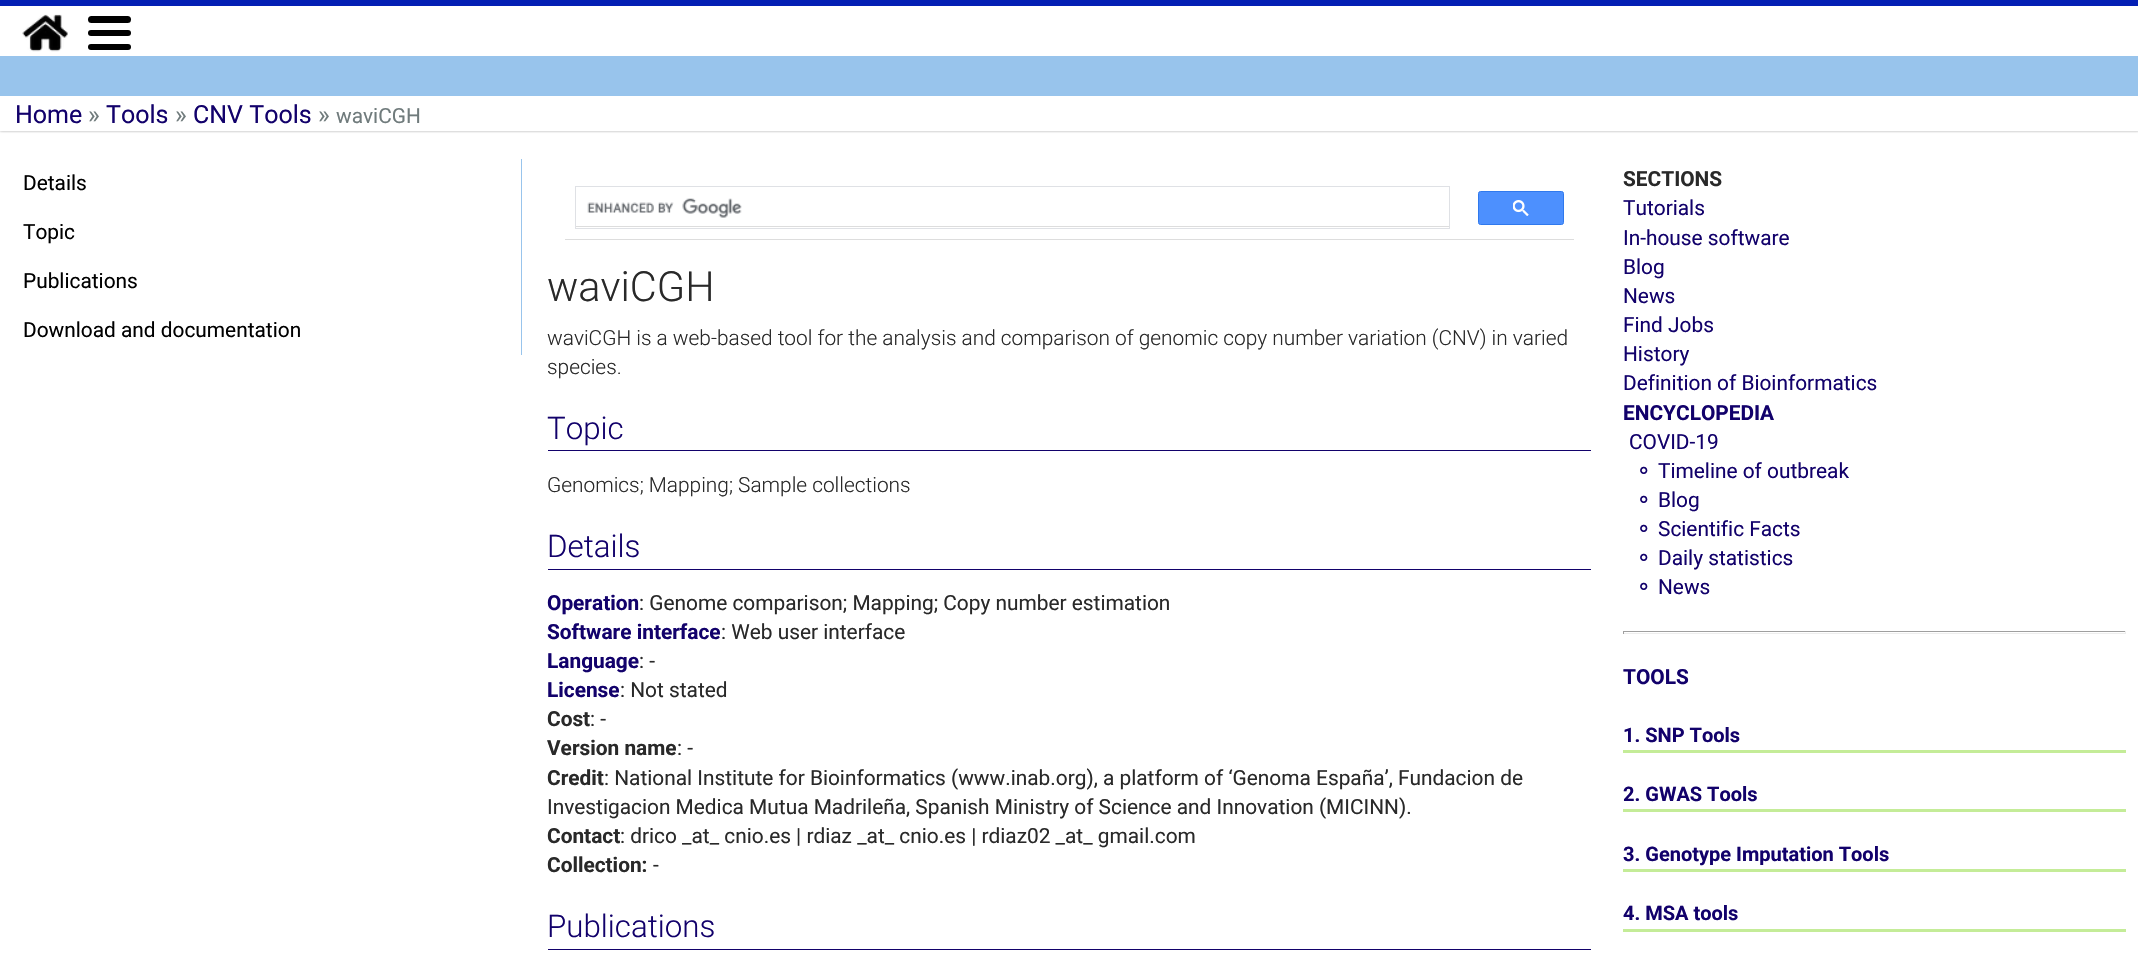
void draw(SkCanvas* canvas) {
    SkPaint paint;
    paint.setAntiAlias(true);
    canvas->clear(0xFFFFFFFF);
    paint.setColor(0xFF041FB4);
    canvas->drawRect(SkRect::MakeXYWH(0, 0, 2138, 6), paint);
    canvas->save();
    canvas->clipPath(SkPathBuilder(SkPathFillType::kEvenOdd).moveTo(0, 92).lineTo(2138, 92).lineTo(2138, 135).lineTo(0, 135).close().moveTo(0, 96).lineTo(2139, 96).lineTo(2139, 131).lineTo(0, 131).close().detach(), true);
    paint.setColor(0x3D000000);
    paint.setMaskFilter(SkMaskFilter::MakeBlur(kNormal_SkBlurStyle, 1));
    canvas->drawRect(SkRect::MakeXYWH(0, 96, 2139, 35), paint);
    paint.setMaskFilter(nullptr);
    canvas->restore();
    canvas->save();
    canvas->clipRect(SkRect::MakeXYWH(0, 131, 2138, 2));
    paint.setColor(0x1F000000);
    paint.setMaskFilter(SkMaskFilter::MakeBlur(kNormal_SkBlurStyle, 2));
    canvas->drawRect(SkRect::MakeXYWH(0, 96, 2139, 35), paint);
    paint.setMaskFilter(nullptr);
    canvas->restore();
    paint.setColor(0xFF98C4EC);
    canvas->drawRect(SkRect::MakeXYWH(0, 56, 2138, 40), paint);
    canvas->drawImageRect(SkImages::DeferredFromEncodedData(SkData::MakeFromFileName("img1.png")), SkRect::MakeXYWH(22, 14, 46, 38), SkSamplingOptions());
    paint.setColor(0xFF000000);
    canvas->drawRoundRect(SkRect::MakeXYWH(88, 16, 43, 7), 3.5f, 3.5f, paint);
    canvas->drawRoundRect(SkRect::MakeXYWH(88, 30, 43, 6), 3, 3, paint);
    canvas->drawRoundRect(SkRect::MakeXYWH(88, 44, 43, 6), 3, 3, paint);
    SkFont font1(fontMgr->matchFamilyStyle("Roboto", SkFontStyle::Normal()), 25);
    font1.setSubpixel(true);
    paint.setColor(0xFF12016B);
    canvas->drawString("Home", 15, 123, font1, paint);
    paint.setColor(0xFF707B7C);
    canvas->drawString("»", 88, 123, font1, paint);
    paint.setColor(0xFF12016B);
    canvas->drawString("Tools", 106, 123, font1, paint);
    paint.setColor(0xFF707B7C);
    canvas->drawString("»", 175, 123, font1, paint);
    paint.setColor(0xFF12016B);
    canvas->drawString("CNV Tools", 193, 123, font1, paint);
    paint.setColor(0xFF707B7C);
    canvas->drawString("»", 318, 123, font1, paint);
    SkFont font2(fontMgr->matchFamilyStyle("Roboto", SkFontStyle::Normal()), 20.85f);
    font2.setSubpixel(true);
    canvas->drawString("waviCGH", 336, 123, font2, paint);
    paint.setColor(0xFF98C4EC);
    canvas->drawRect(SkRect::MakeXYWH(521, 159, 1, 196), paint);
    paint.setColor(0xFF000000);
    canvas->drawString("Details", 23, 190, font2, paint);
    canvas->drawString("Topic", 23, 239, font2, paint);
    canvas->drawString("Publications", 23, 288, font2, paint);
    canvas->drawString("Download and documentation", 23, 337, font2, paint);
    paint.setColor(0xFFDDDDDD);
    canvas->drawRect(SkRect::MakeXYWH(565, 239, 1009, 1), paint);
    paint.setStyle(SkPaint::kStroke_Style);
    paint.setStrokeWidth(1);
    paint.setColor(0xFFDFE1E5);
    canvas->drawRect(SkRect::MakeXYWH(575.5f, 186.5f, 874, 42), paint);
    paint.setStyle(SkPaint::kFill_Style);
    paint.setColor(0xFFDDDDDD);
    canvas->drawRect(SkRect::MakeXYWH(576, 226, 873, 1), paint);
    canvas->drawImageRect(SkImages::DeferredFromEncodedData(SkData::MakeFromFileName("img2.png")), SkRect::MakeXYWH(587, 198, 155, 20), SkSamplingOptions());
    paint.setColor(0xFF4D90FE);
    canvas->drawRoundRect(SkRect::MakeXYWH(1478.5f, 191.5f, 85, 33), 2, 2, paint);
    paint.setStyle(SkPaint::kStroke_Style);
    paint.setColor(0xFF3079ED);
    canvas->drawRoundRect(SkRect::MakeXYWH(1478.5f, 191.5f, 85, 33), 2, 2, paint);
    canvas->drawImageRect(SkImages::DeferredFromEncodedData(SkData::MakeFromFileName("img3.png")), SkRect::MakeXYWH(1513, 200, 16, 16), SkSamplingOptions());
    SkFont font3(fontMgr->matchFamilyStyle("Roboto", SkFontStyle(300, SkFontStyle::kNormal_Width, SkFontStyle::kUpright_Slant)), 41.5f);
    font3.setSubpixel(true);
    paint.setStyle(SkPaint::kFill_Style);
    paint.setColor(0xFF292929);
    canvas->drawString("waviCGH", 547, 301, font3, paint);
    SkFont font4(fontMgr->matchFamilyStyle("Roboto", SkFontStyle(300, SkFontStyle::kNormal_Width, SkFontStyle::kUpright_Slant)), 20.85f);
    font4.setSubpixel(true);
    canvas->drawString("waviCGH is a web-based tool for the analysis and comparison of genomic copy number variation (CNV) in varied", 547, 345, font4, paint);
    canvas->drawString("species.", 547, 374, font4, paint);
    paint.setColor(0xFF12016B);
    canvas->drawRect(SkRect::MakeXYWH(548, 450, 1043, 1), paint);
    SkFont font5(fontMgr->matchFamilyStyle("Roboto", SkFontStyle(300, SkFontStyle::kNormal_Width, SkFontStyle::kUpright_Slant)), 31.25f);
    font5.setSubpixel(true);
    canvas->drawString("Topic", 547, 439, font5, paint);
    paint.setColor(0xFF292929);
    canvas->drawString("Genomics; Mapping; Sample collections", 547, 492, font4, paint);
    paint.setColor(0xFF12016B);
    canvas->drawRect(SkRect::MakeXYWH(548, 569, 1043, 1), paint);
    canvas->drawString("Details", 547, 557, font5, paint);
    SkFont font6(fontMgr->matchFamilyStyle("Roboto", SkFontStyle::Bold()), 20.85f);
    font6.setSubpixel(true);
    canvas->drawString("Operation", 547, 610, font6, paint);
    paint.setColor(0xFF292929);
    canvas->drawString(": Genome comparison; Mapping; Copy number estimation", 639, 610, font2, paint);
    paint.setColor(0xFF12016B);
    canvas->drawString("Software interface", 547, 639, font6, paint);
    paint.setColor(0xFF292929);
    canvas->drawString(": Web user interface", 721, 639, font2, paint);
    paint.setColor(0xFF12016B);
    canvas->drawString("Language", 547, 668, font6, paint);
    paint.setColor(0xFF292929);
    canvas->drawString(": -", 639, 668, font2, paint);
    paint.setColor(0xFF12016B);
    canvas->drawString("License", 547, 697, font6, paint);
    paint.setColor(0xFF292929);
    canvas->drawString(": Not stated", 620, 697, font2, paint);
    canvas->drawString("Cost", 547, 726, font6, paint);
    canvas->drawString(": -", 590, 726, font2, paint);
    canvas->drawString("Version name", 547, 755, font6, paint);
    canvas->drawString(": -", 677, 755, font2, paint);
    canvas->drawString("Credit", 547, 785, font6, paint);
    canvas->drawString(": National Institute for Bioinformatics (www.inab.org), a platform of ‘Genoma España’, Fundacion de", 604, 785, font2, paint);
    canvas->drawString("Investigacion Medica Mutua Madrileña, Spanish Ministry of Science and Innovation (MICINN).", 547, 814, font2, paint);
    canvas->drawString("Contact", 547, 843, font6, paint);
    canvas->drawString(": drico _at_ cnio.es | rdiaz _at_ cnio.es | rdiaz02 _at_ gmail.com", 620, 843, font2, paint);
    canvas->drawString("Collection:", 547, 872, font6, paint);
    canvas->drawString("-", 653, 872, font2, paint);
    paint.setColor(0xFF12016B);
    canvas->drawRect(SkRect::MakeXYWH(548, 949, 1043, 1), paint);
    canvas->drawString("Publications", 547, 937, font5, paint);
    paint.setColor(0xFF292929);
    canvas->drawString("SECTIONS", 1623, 186, font6, paint);
    paint.setColor(0xFF12016B);
    canvas->drawString("Tutorials", 1623, 215, font2, paint);
    canvas->drawString("In-house software", 1623, 245, font2, paint);
    canvas->drawString("Blog", 1623, 274, font2, paint);
    canvas->drawString("News", 1623, 303, font2, paint);
    canvas->drawString("Find Jobs", 1623, 332, font2, paint);
    canvas->drawString("History", 1623, 361, font2, paint);
    canvas->drawString("Definition of Bioinformatics", 1623, 390, font2, paint);
    canvas->drawString("ENCYCLOPEDIA", 1623, 420, font6, paint);
    canvas->drawString("COVID-19", 1629, 449, font2, paint);
    SkFont font7(fontMgr->matchFamilyStyle("DejaVu Sans", SkFontStyle::Normal()), 20.85f);
    font7.setSubpixel(true);
    canvas->drawString("⚬", 1635, 478, font7, paint);
    canvas->drawString("Timeline of outbreak", 1658, 478, font2, paint);
    canvas->drawString("⚬", 1635, 507, font7, paint);
    canvas->drawString("Blog", 1658, 507, font2, paint);
    canvas->drawString("⚬", 1635, 536, font7, paint);
    canvas->drawString("Scientific Facts", 1658, 536, font2, paint);
    canvas->drawString("⚬", 1635, 565, font7, paint);
    canvas->drawString("Daily statistics", 1658, 565, font2, paint);
    canvas->drawString("⚬", 1635, 594, font7, paint);
    canvas->drawString("News", 1658, 594, font2, paint);
    paint.setColor(0xFF9F9F9F);
    canvas->drawRect(SkRect::MakeXYWH(1623, 631, 503, 1), paint);
    paint.setColor(0xFFEEEEEE);
    canvas->drawRect(SkRect::MakeXYWH(2125, 631, 1, 3), paint);
    canvas->drawRect(SkRect::MakeXYWH(1623, 633, 503, 1), paint);
    paint.setColor(0xFF9F9F9F);
    canvas->drawRect(SkRect::MakeXYWH(1623, 631, 1, 3), paint);
    paint.setColor(0xFF12016B);
    canvas->drawString("TOOLS", 1623, 684, font6, paint);
    paint.setColor(0xFFC4EC98);
    canvas->drawRect(SkRect::MakeXYWH(1623, 750, 503, 3), paint);
    SkFont font8(fontMgr->matchFamilyStyle("Roboto", SkFontStyle::Bold()), 20);
    font8.setSubpixel(true);
    paint.setColor(0xFF12016B);
    canvas->drawString("1. SNP Tools", 1623, 742, font8, paint);
    paint.setColor(0xFFC4EC98);
    canvas->drawRect(SkRect::MakeXYWH(1623, 809, 503, 3), paint);
    paint.setColor(0xFF12016B);
    canvas->drawString("2. GWAS Tools", 1623, 801, font8, paint);
    paint.setColor(0xFFC4EC98);
    canvas->drawRect(SkRect::MakeXYWH(1623, 869, 503, 3), paint);
    paint.setColor(0xFF12016B);
    canvas->drawString("3. Genotype Imputation Tools", 1623, 861, font8, paint);
    paint.setColor(0xFFC4EC98);
    canvas->drawRect(SkRect::MakeXYWH(1623, 929, 503, 3), paint);
    paint.setColor(0xFF12016B);
    canvas->drawString("4. MSA tools", 1623, 920, font8, paint);
}
